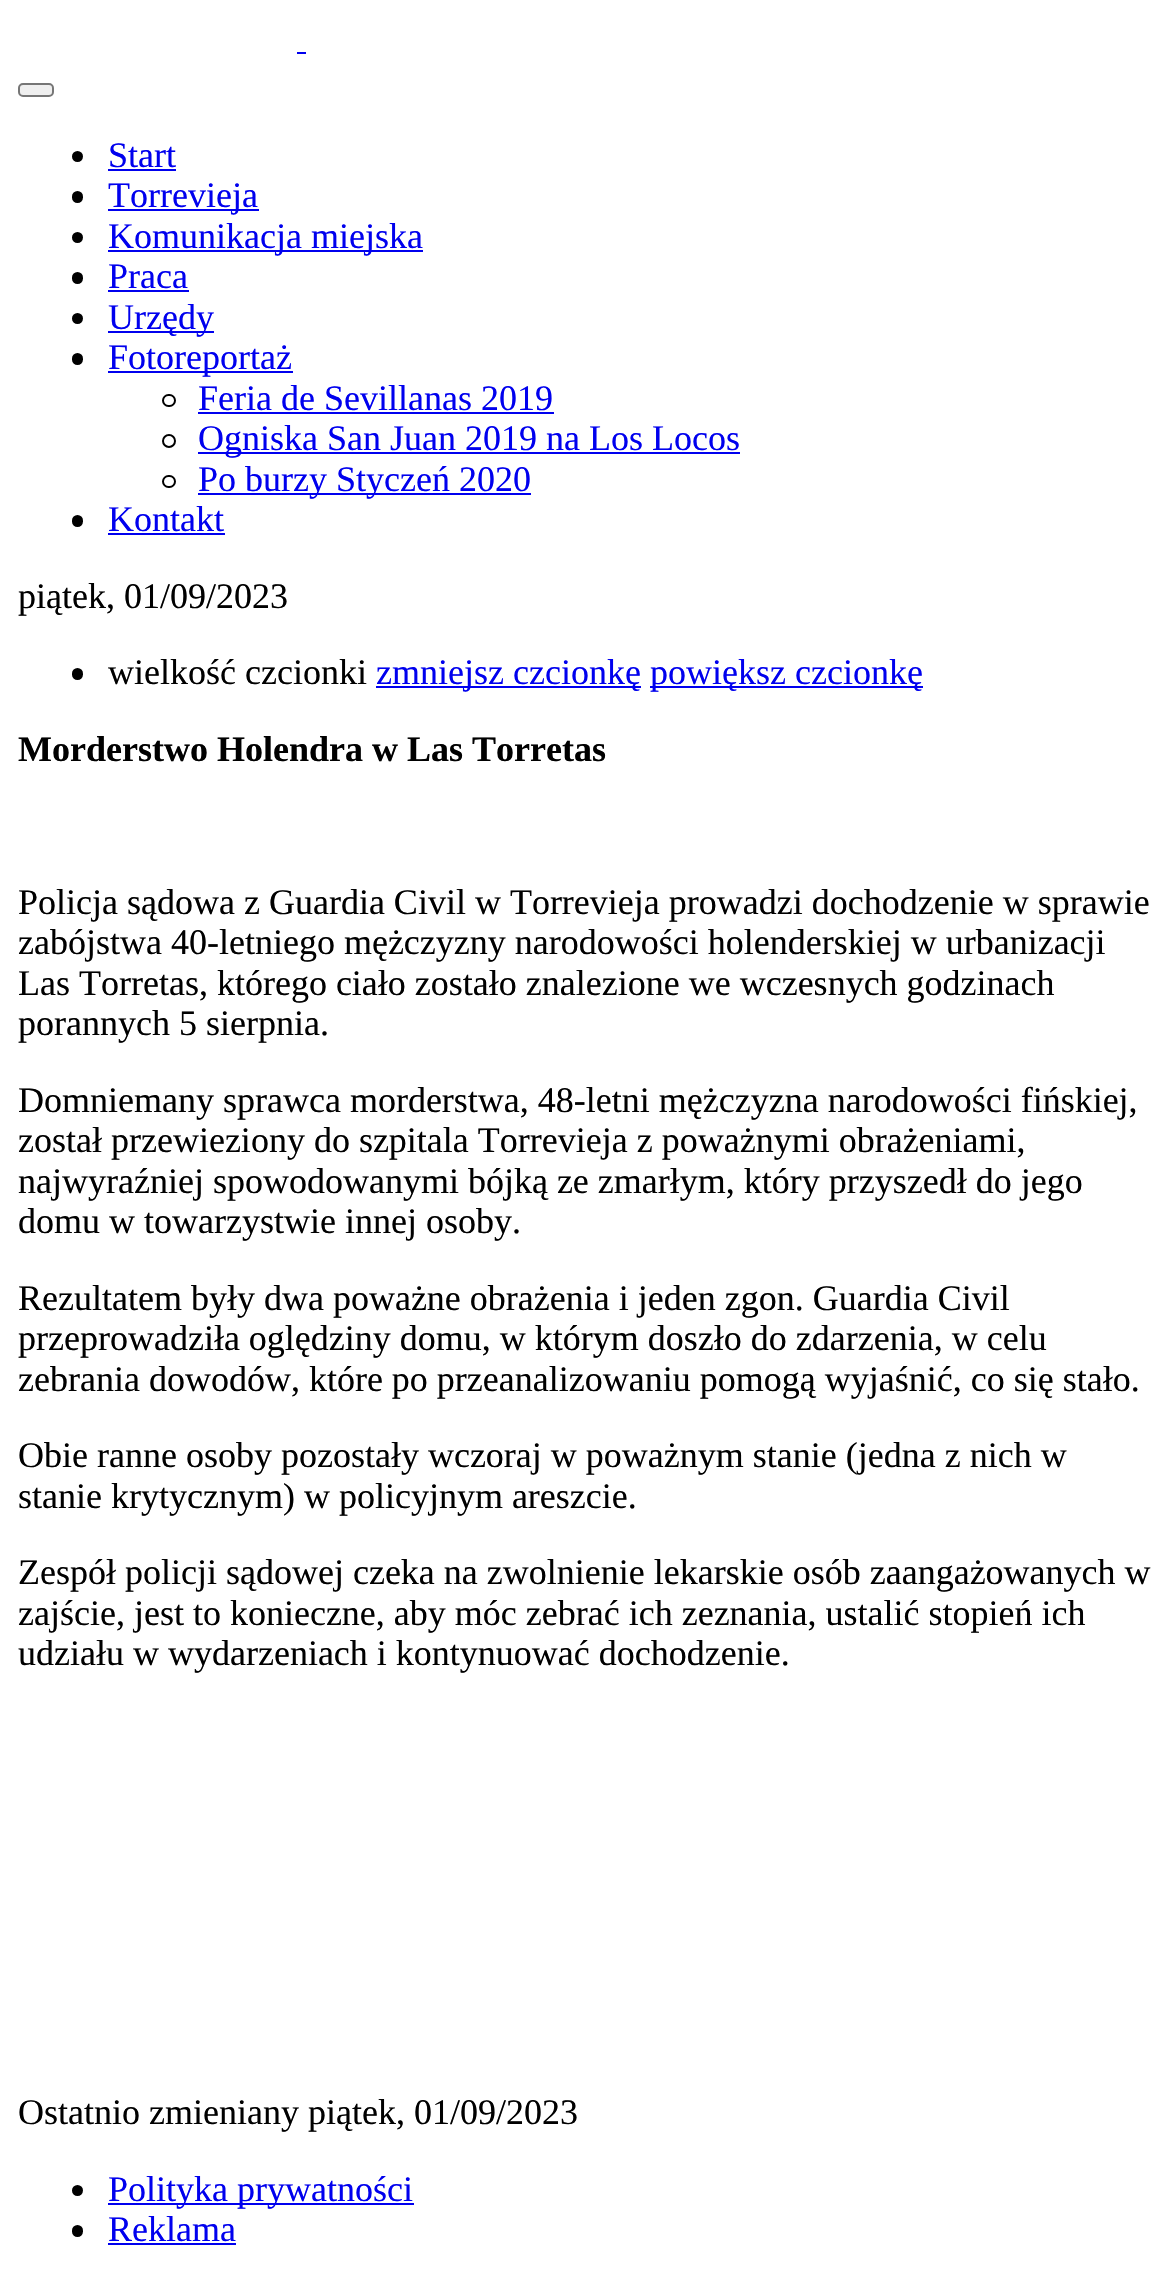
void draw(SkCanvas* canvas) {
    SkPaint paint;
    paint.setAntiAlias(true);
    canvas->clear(0xFFFFFFFF);
    paint.setColor(0xFF0000EE);
    canvas->drawRect(SkRect::MakeXYWH(297, 52, 9, 2), paint);
    paint.setColor(0xFFEFEFEF);
    canvas->drawRoundRect(SkRect::MakeXYWH(19, 84, 34, 12), 4, 4, paint);
    paint.setStyle(SkPaint::kStroke_Style);
    paint.setStrokeWidth(2);
    paint.setColor(0xFF767676);
    canvas->drawRoundRect(SkRect::MakeXYWH(19, 84, 34, 12), 4, 4, paint);
    paint.setStyle(SkPaint::kFill_Style);
    paint.setColor(0xFF000000);
    canvas->drawCircle(77.5f, 156.5f, 5.5f, paint);
    SkFont font1(fontMgr->matchFamilyStyle("Liberation Serif", SkFontStyle::Normal()), 36);
    font1.setSubpixel(true);
    paint.setColor(0xFF0000EE);
    canvas->drawString("Start", 108, 167, font1, paint);
    canvas->drawRect(SkRect::MakeXYWH(108, 169, 68, 2), paint);
    paint.setColor(0xFF000000);
    canvas->drawRoundRect(SkRect::MakeXYWH(72, 191, 11, 12), 5.5f, 5.5f, paint);
    paint.setColor(0xFF0000EE);
    canvas->drawRect(SkRect::MakeXYWH(108, 209, 151, 2), paint);
    canvas->drawString("Torrevieja", 108, 207, font1, paint);
    paint.setColor(0xFF000000);
    canvas->drawCircle(77.5f, 237.5f, 5.5f, paint);
    paint.setColor(0xFF0000EE);
    canvas->drawRect(SkRect::MakeXYWH(108, 250, 315, 2), paint);
    canvas->drawString("Komunikacja miejska", 108, 248, font1, paint);
    paint.setColor(0xFF000000);
    canvas->drawRoundRect(SkRect::MakeXYWH(72, 272, 11, 12), 5.5f, 5.5f, paint);
    paint.setColor(0xFF0000EE);
    canvas->drawString("Praca", 108, 288, font1, paint);
    canvas->drawRect(SkRect::MakeXYWH(108, 290, 81, 2), paint);
    paint.setColor(0xFF000000);
    canvas->drawCircle(77.5f, 318.5f, 5.5f, paint);
    paint.setColor(0xFF0000EE);
    canvas->drawRect(SkRect::MakeXYWH(108, 331, 106, 2), paint);
    canvas->drawString("Urzędy", 108, 329, font1, paint);
    paint.setColor(0xFF000000);
    canvas->drawRoundRect(SkRect::MakeXYWH(72, 353, 11, 12), 5.5f, 5.5f, paint);
    paint.setColor(0xFF0000EE);
    canvas->drawRect(SkRect::MakeXYWH(108, 371, 185, 2), paint);
    canvas->drawString("Fotoreportaż", 108, 369, font1, paint);
    paint.setStyle(SkPaint::kStroke_Style);
    paint.setColor(0xFF000000);
    canvas->drawRoundRect(SkRect::MakeXYWH(163, 395, 12, 11), 5.5f, 5.5f, paint);
    paint.setStyle(SkPaint::kFill_Style);
    paint.setColor(0xFF0000EE);
    canvas->drawString("Feria de Sevillanas 2019", 198, 410, font1, paint);
    canvas->drawRect(SkRect::MakeXYWH(198, 412, 356, 2), paint);
    paint.setStyle(SkPaint::kStroke_Style);
    paint.setColor(0xFF000000);
    canvas->drawCircle(169, 441, 6, paint);
    paint.setStyle(SkPaint::kFill_Style);
    paint.setColor(0xFF0000EE);
    canvas->drawRect(SkRect::MakeXYWH(198, 452, 542, 2), paint);
    canvas->drawString("Ogniska San Juan 2019 na Los Locos", 198, 450, font1, paint);
    paint.setStyle(SkPaint::kStroke_Style);
    paint.setColor(0xFF000000);
    canvas->drawRoundRect(SkRect::MakeXYWH(163, 476, 12, 11), 5.5f, 5.5f, paint);
    paint.setStyle(SkPaint::kFill_Style);
    paint.setColor(0xFF0000EE);
    canvas->drawRect(SkRect::MakeXYWH(198, 493, 333, 2), paint);
    canvas->drawString("Po burzy Styczeń 2020", 198, 491, font1, paint);
    paint.setColor(0xFF000000);
    canvas->drawRoundRect(SkRect::MakeXYWH(72, 515, 11, 12), 5.5f, 5.5f, paint);
    paint.setColor(0xFF0000EE);
    canvas->drawString("Kontakt", 108, 531, font1, paint);
    canvas->drawRect(SkRect::MakeXYWH(108, 533, 117, 2), paint);
    paint.setColor(0xFF000000);
    canvas->drawString("piątek, 01/09/2023", 18, 608, font1, paint);
    canvas->drawRoundRect(SkRect::MakeXYWH(72, 668, 11, 12), 5.5f, 5.5f, paint);
    canvas->drawString("wielkość czcionki", 108, 684, font1, paint);
    paint.setColor(0xFF0000EE);
    canvas->drawRect(SkRect::MakeXYWH(376, 686, 265, 2), paint);
    canvas->drawString("zmniejsz czcionkę", 376, 684, font1, paint);
    canvas->drawRect(SkRect::MakeXYWH(650, 686, 273, 2), paint);
    canvas->drawString("powiększ czcionkę", 650, 684, font1, paint);
    SkFont font2(fontMgr->matchFamilyStyle("Liberation Serif", SkFontStyle::Bold()), 36);
    font2.setSubpixel(true);
    paint.setColor(0xFF000000);
    canvas->drawString("Morderstwo Holendra w Las Torretas", 18, 761, font2, paint);
    canvas->drawString("Policja sądowa z Guardia Civil w Torrevieja prowadzi dochodzenie w sprawie", 18, 914, font1, paint);
    canvas->drawString("zabójstwa 40-letniego mężczyzny narodowości holenderskiej w urbanizacji", 18, 954, font1, paint);
    canvas->drawString("Las Torretas, którego ciało zostało znalezione we wczesnych godzinach", 18, 995, font1, paint);
    canvas->drawString("porannych 5 sierpnia.", 18, 1035, font1, paint);
    canvas->drawString("Domniemany sprawca morderstwa, 48-letni mężczyzna narodowości fińskiej,", 18, 1112, font1, paint);
    canvas->drawString("został przewieziony do szpitala Torrevieja z poważnymi obrażeniami,", 18, 1152, font1, paint);
    canvas->drawString("najwyraźniej spowodowanymi bójką ze zmarłym, który przyszedł do jego", 18, 1193, font1, paint);
    canvas->drawString("domu w towarzystwie innej osoby.", 18, 1233, font1, paint);
    canvas->drawString("Rezultatem były dwa poważne obrażenia i jeden zgon. Guardia Civil", 18, 1310, font1, paint);
    canvas->drawString("przeprowadziła oględziny domu, w którym doszło do zdarzenia, w celu", 18, 1350, font1, paint);
    canvas->drawString("zebrania dowodów, które po przeanalizowaniu pomogą wyjaśnić, co się stało.", 18, 1391, font1, paint);
    canvas->drawString("Obie ranne osoby pozostały wczoraj w poważnym stanie (jedna z nich w", 18, 1467, font1, paint);
    canvas->drawString("stanie krytycznym) w policyjnym areszcie.", 18, 1508, font1, paint);
    canvas->drawString("Zespół policji sądowej czeka na zwolnienie lekarskie osób zaangażowanych w", 18, 1584, font1, paint);
    canvas->drawString("zajście, jest to konieczne, aby móc zebrać ich zeznania, ustalić stopień ich", 18, 1625, font1, paint);
    canvas->drawString("udziału w wydarzeniach i kontynuować dochodzenie.", 18, 1665, font1, paint);
    canvas->drawString("Ostatnio zmieniany piątek, 01/09/2023", 18, 2124, font1, paint);
    canvas->drawCircle(77.5f, 2190.5f, 5.5f, paint);
    paint.setColor(0xFF0000EE);
    canvas->drawRect(SkRect::MakeXYWH(108, 2203, 306, 2), paint);
    canvas->drawString("Polityka prywatności", 108, 2201, font1, paint);
    paint.setColor(0xFF000000);
    canvas->drawRoundRect(SkRect::MakeXYWH(72, 2225, 11, 12), 5.5f, 5.5f, paint);
    paint.setColor(0xFF0000EE);
    canvas->drawString("Reklama", 108, 2241, font1, paint);
    canvas->drawRect(SkRect::MakeXYWH(108, 2243, 128, 2), paint);
}
